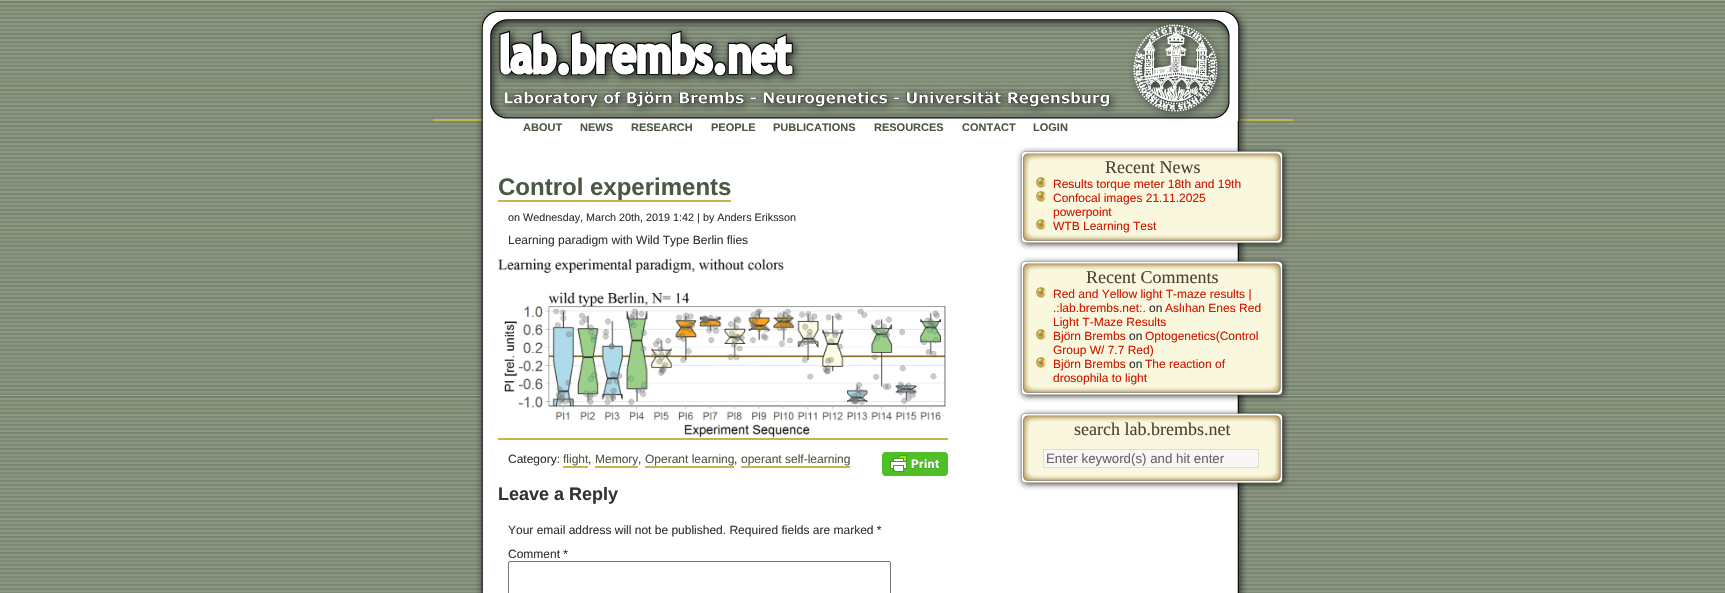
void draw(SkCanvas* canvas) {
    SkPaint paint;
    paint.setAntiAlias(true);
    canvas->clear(0xFFFFFFFF);
    canvas->drawImageRect(SkImages::DeferredFromEncodedData(SkData::MakeFromFileName("img1.png")), SkRect::MakeXYWH(0, 0, 1725, 593), SkSamplingOptions());
    paint.setColor(0xFFC4B550);
    canvas->drawRect(SkRect::MakeXYWH(433, 119, 860, 2), paint);
    canvas->drawImageRect(SkImages::DeferredFromEncodedData(SkData::MakeFromFileName("img2.png")), SkRect::MakeXYWH(476, 6, 773, 115), SkSamplingOptions());
    canvas->drawImageRect(SkImages::DeferredFromEncodedData(SkData::MakeFromFileName("img3.png")), SkRect::MakeXYWH(476, 121, 771, 472), SkSamplingOptions());
    SkFont font1(fontMgr->matchFamilyStyle("Liberation Sans", SkFontStyle::Bold()), 11);
    font1.setSubpixel(true);
    paint.setColor(0xFF4C5844);
    canvas->drawString("ABOUT", 523, 131, font1, paint);
    canvas->drawString("NEWS", 580, 131, font1, paint);
    canvas->drawString("RESEARCH", 631, 131, font1, paint);
    canvas->drawString("PEOPLE", 711, 131, font1, paint);
    canvas->drawString("PUBLICATIONS", 773, 131, font1, paint);
    canvas->drawString("RESOURCES", 874, 131, font1, paint);
    canvas->drawString("CONTACT", 962, 131, font1, paint);
    canvas->drawString("LOGIN", 1033, 131, font1, paint);
    SkFont font2(fontMgr->matchFamilyStyle("Liberation Sans", SkFontStyle::Bold()), 24);
    font2.setSubpixel(true);
    canvas->drawString("Control experiments", 498, 195, font2, paint);
    paint.setColor(0xFFC4B550);
    canvas->drawRect(SkRect::MakeXYWH(498, 200, 233, 2), paint);
    SkFont font3(fontMgr->matchFamilyStyle("Liberation Sans", SkFontStyle::Normal()), 10.8f);
    font3.setSubpixel(true);
    paint.setColor(0xFF333333);
    canvas->drawString("on Wednesday, March 20th, 2019 1:42 | by Anders Eriksson", 508, 221, font3, paint);
    SkFont font4(fontMgr->matchFamilyStyle("Liberation Sans", SkFontStyle::Normal()), 12);
    font4.setSubpixel(true);
    canvas->drawString("Learning paradigm with Wild Type Berlin flies", 508, 244, font4, paint);
    paint.setColor(0xFFC4B550);
    canvas->drawRect(SkRect::MakeXYWH(498, 438, 450, 2), paint);
    canvas->drawImageRect(SkImages::DeferredFromEncodedData(SkData::MakeFromFileName("img4.png")), SkRect::MakeXYWH(498, 258, 448, 180), SkSamplingOptions());
    canvas->drawImageRect(SkImages::DeferredFromEncodedData(SkData::MakeFromFileName("img5.png")), SkRect::MakeXYWH(882, 452, 66, 24), SkSamplingOptions());
    paint.setColor(0xFF333333);
    canvas->drawString("Category:", 508, 463, font4, paint);
    paint.setColor(0xFF4C5844);
    canvas->drawString("flight", 563, 463, font4, paint);
    paint.setColor(0xFFC4B550);
    canvas->drawRect(SkRect::MakeXYWH(563, 466, 25, 2), paint);
    paint.setColor(0xFF333333);
    canvas->drawString(",", 588, 463, font4, paint);
    paint.setColor(0xFF4C5844);
    canvas->drawString("Memory", 595, 463, font4, paint);
    paint.setColor(0xFFC4B550);
    canvas->drawRect(SkRect::MakeXYWH(595, 466, 43, 2), paint);
    paint.setColor(0xFF333333);
    canvas->drawString(",", 638, 463, font4, paint);
    paint.setColor(0xFF4C5844);
    canvas->drawString("Operant learning", 645, 463, font4, paint);
    paint.setColor(0xFFC4B550);
    canvas->drawRect(SkRect::MakeXYWH(645, 466, 89, 2), paint);
    paint.setColor(0xFF333333);
    canvas->drawString(",", 734, 463, font4, paint);
    paint.setColor(0xFF4C5844);
    canvas->drawString("operant self-learning", 741, 463, font4, paint);
    paint.setColor(0xFFC4B550);
    canvas->drawRect(SkRect::MakeXYWH(741, 466, 109, 2), paint);
    SkFont font5(fontMgr->matchFamilyStyle("Liberation Sans", SkFontStyle::Bold()), 18);
    font5.setSubpixel(true);
    paint.setColor(0xFF333333);
    canvas->drawString("Leave a Reply", 498, 500, font5, paint);
    canvas->drawString("Your email address will not be published. Required fields are marked *", 508, 534, font4, paint);
    canvas->drawString("Comment *", 508, 558, font4, paint);
    paint.setStyle(SkPaint::kStroke_Style);
    paint.setStrokeWidth(1);
    paint.setColor(0xFF767676);
    canvas->drawRoundRect(SkRect::MakeXYWH(508.5f, 561.5f, 382, 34), 1.5f, 1.5f, paint);
    canvas->drawImageRect(SkImages::DeferredFromEncodedData(SkData::MakeFromFileName("img6.png")), SkRect::MakeXYWH(1016, 147, 273, 30), SkSamplingOptions());
    SkFont font6(fontMgr->matchFamilyStyle("Liberation Serif", SkFontStyle::Normal()), 18);
    font6.setSubpixel(true);
    paint.setStyle(SkPaint::kFill_Style);
    paint.setColor(0xFF4A4131);
    canvas->drawString("Recent News", 1105, 173, font6, paint);
    canvas->drawImageRect(SkImages::DeferredFromEncodedData(SkData::MakeFromFileName("img7.png")), SkRect::MakeXYWH(1016, 177, 273, 56), SkSamplingOptions());
    canvas->drawImageRect(SkImages::DeferredFromEncodedData(SkData::MakeFromFileName("img8.png")), SkRect::MakeXYWH(1036, 177, 10, 11), SkSamplingOptions());
    paint.setColor(0xFFD21600);
    canvas->drawString("Results torque meter 18th and 19th", 1053, 188, font4, paint);
    canvas->drawImageRect(SkImages::DeferredFromEncodedData(SkData::MakeFromFileName("img8.png")), SkRect::MakeXYWH(1036, 191, 10, 11), SkSamplingOptions());
    canvas->drawString("Confocal images 21.11.2025", 1053, 202, font4, paint);
    canvas->drawString("powerpoint", 1053, 216, font4, paint);
    canvas->drawImageRect(SkImages::DeferredFromEncodedData(SkData::MakeFromFileName("img8.png")), SkRect::MakeXYWH(1036, 219, 10, 11), SkSamplingOptions());
    canvas->drawString("WTB Learning Test", 1053, 230, font4, paint);
    canvas->drawImageRect(SkImages::DeferredFromEncodedData(SkData::MakeFromFileName("img9.png")), SkRect::MakeXYWH(1016, 233, 273, 17), SkSamplingOptions());
    canvas->drawImageRect(SkImages::DeferredFromEncodedData(SkData::MakeFromFileName("img10.png")), SkRect::MakeXYWH(1016, 257, 273, 30), SkSamplingOptions());
    paint.setColor(0xFF4A4131);
    canvas->drawString("Recent Comments", 1086, 283, font6, paint);
    canvas->drawImageRect(SkImages::DeferredFromEncodedData(SkData::MakeFromFileName("img11.png")), SkRect::MakeXYWH(1016, 287, 273, 98), SkSamplingOptions());
    canvas->drawImageRect(SkImages::DeferredFromEncodedData(SkData::MakeFromFileName("img8.png")), SkRect::MakeXYWH(1036, 287, 10, 11), SkSamplingOptions());
    paint.setColor(0xFFD21600);
    canvas->drawString("Red and Yellow light T-maze results |", 1053, 298, font4, paint);
    canvas->drawString(".:lab.brembs.net:.", 1053, 312, font4, paint);
    paint.setColor(0xFF333333);
    canvas->drawString("on", 1149, 312, font4, paint);
    paint.setColor(0xFFD21600);
    canvas->drawString("Aslıhan Enes Red", 1165, 312, font4, paint);
    canvas->drawString("Light T-Maze Results", 1053, 326, font4, paint);
    canvas->drawImageRect(SkImages::DeferredFromEncodedData(SkData::MakeFromFileName("img8.png")), SkRect::MakeXYWH(1036, 329, 10, 11), SkSamplingOptions());
    canvas->drawString("Björn Brembs", 1053, 340, font4, paint);
    paint.setColor(0xFF333333);
    canvas->drawString("on", 1129, 340, font4, paint);
    paint.setColor(0xFFD21600);
    canvas->drawString("Optogenetics(Control", 1145, 340, font4, paint);
    canvas->drawString("Group W/ 7.7 Red)", 1053, 354, font4, paint);
    canvas->drawImageRect(SkImages::DeferredFromEncodedData(SkData::MakeFromFileName("img8.png")), SkRect::MakeXYWH(1036, 357, 10, 11), SkSamplingOptions());
    canvas->drawString("Björn Brembs", 1053, 368, font4, paint);
    paint.setColor(0xFF333333);
    canvas->drawString("on", 1129, 368, font4, paint);
    paint.setColor(0xFFD21600);
    canvas->drawString("The reaction of", 1145, 368, font4, paint);
    canvas->drawString("drosophila to light", 1053, 382, font4, paint);
    canvas->drawImageRect(SkImages::DeferredFromEncodedData(SkData::MakeFromFileName("img12.png")), SkRect::MakeXYWH(1016, 385, 273, 17), SkSamplingOptions());
    canvas->drawImageRect(SkImages::DeferredFromEncodedData(SkData::MakeFromFileName("img13.png")), SkRect::MakeXYWH(1016, 409, 273, 30), SkSamplingOptions());
    paint.setColor(0xFF4A4131);
    canvas->drawString("search lab.brembs.net", 1074, 435, font6, paint);
    canvas->drawImageRect(SkImages::DeferredFromEncodedData(SkData::MakeFromFileName("img14.png")), SkRect::MakeXYWH(1016, 439, 273, 34), SkSamplingOptions());
    paint.setColor(0xFFFAF6F6);
    canvas->drawRect(SkRect::MakeXYWH(1043.5f, 449.5f, 215, 18), paint);
    paint.setStyle(SkPaint::kStroke_Style);
    paint.setColor(0xFFE3DCCB);
    canvas->drawRect(SkRect::MakeXYWH(1043.5f, 449.5f, 215, 18), paint);
    SkFont font7(fontMgr->matchFamilyStyle("Liberation Sans", SkFontStyle::Normal()), 13.3f);
    font7.setSubpixel(true);
    paint.setStyle(SkPaint::kFill_Style);
    paint.setColor(0xFF666666);
    canvas->drawString("Enter keyword(s) and hit enter", 1046, 463, font7, paint);
    canvas->drawImageRect(SkImages::DeferredFromEncodedData(SkData::MakeFromFileName("img15.png")), SkRect::MakeXYWH(1016, 473, 273, 17), SkSamplingOptions());
}
